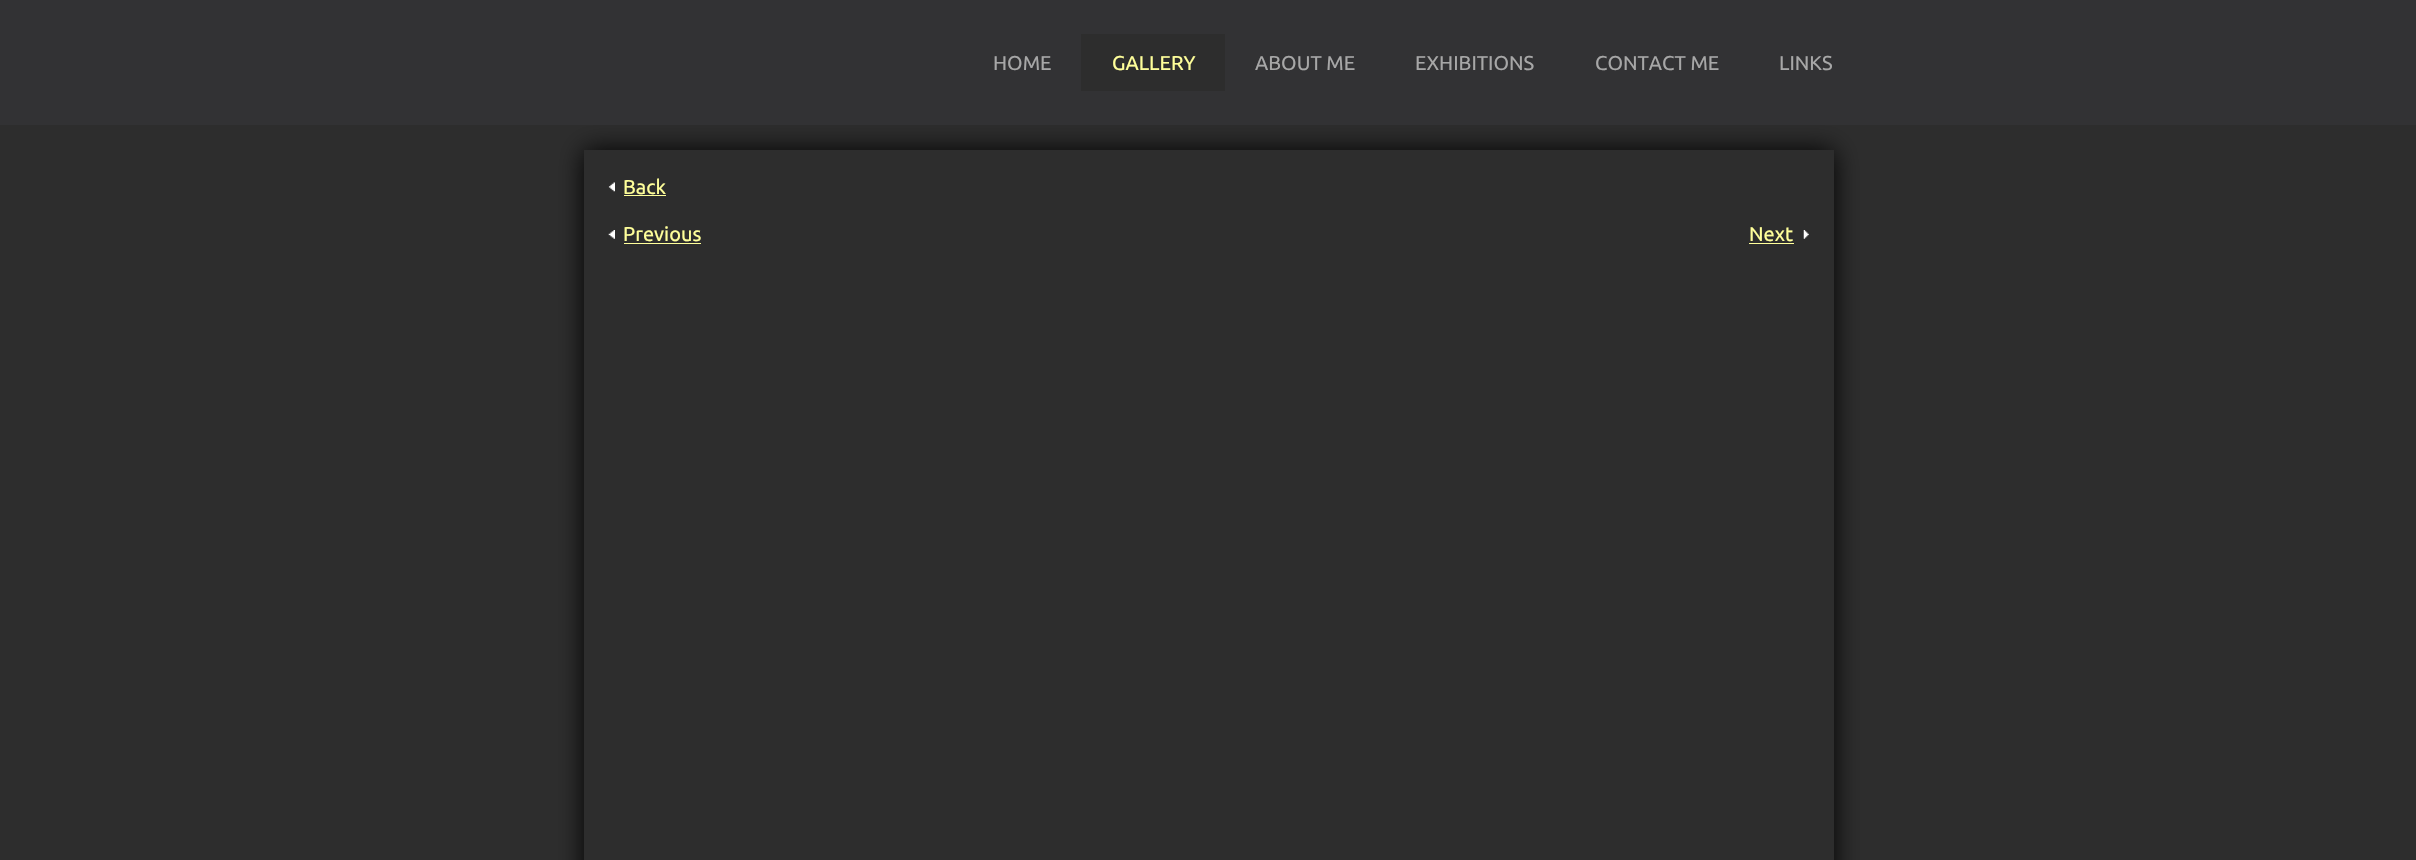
void draw(SkCanvas* canvas) {
    SkPaint paint;
    paint.setAntiAlias(true);
    canvas->clear(0xFF2D2D2D);
    paint.setColor(0xFF000000);
    paint.setMaskFilter(SkMaskFilter::MakeBlur(kNormal_SkBlurStyle, 12.5f));
    canvas->drawRect(SkRect::MakeXYWH(584, 150, 1250, 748), paint);
    paint.setMaskFilter(nullptr);
    paint.setColor(0xFF323234);
    canvas->drawRect(SkRect::MakeXYWH(0, 0, 2416, 125), paint);
    SkFont font1(fontMgr->matchFamilyStyle("Ubuntu", SkFontStyle::Normal()), 20);
    font1.setSubpixel(true);
    paint.setColor(0xFFA7A7A7);
    canvas->drawString("HOME", 993, 70, font1, paint);
    paint.setColor(0xFF2D2D2D);
    canvas->drawRect(SkRect::MakeXYWH(1081, 34, 144, 57), paint);
    paint.setColor(0xFFFFFF9A);
    canvas->drawString("GALLERY", 1112, 70, font1, paint);
    paint.setColor(0xFFA7A7A7);
    canvas->drawString("ABOUT ME", 1255, 70, font1, paint);
    canvas->drawString("EXHIBITIONS", 1415, 70, font1, paint);
    canvas->drawString("CONTACT ME", 1595, 70, font1, paint);
    canvas->drawString("LINKS", 1779, 70, font1, paint);
    paint.setColor(0xFF2D2D2D);
    canvas->drawRect(SkRect::MakeXYWH(584, 150, 1250, 710), paint);
    canvas->drawImageRect(SkImages::DeferredFromEncodedData(SkData::MakeFromFileName("img1.png")), SkRect::MakeXYWH(608, 182, 7, 10), SkSamplingOptions());
    paint.setColor(0xFFFFFF9A);
    canvas->drawString("Back", 623, 194, font1, paint);
    canvas->drawRect(SkRect::MakeXYWH(624, 195, 42, 1), paint);
    canvas->drawImageRect(SkImages::DeferredFromEncodedData(SkData::MakeFromFileName("img2.png")), SkRect::MakeXYWH(608, 230, 7, 9), SkSamplingOptions());
    canvas->drawString("Previous", 623, 241, font1, paint);
    canvas->drawRect(SkRect::MakeXYWH(624, 243, 77, 1), paint);
    canvas->drawImageRect(SkImages::DeferredFromEncodedData(SkData::MakeFromFileName("img3.png")), SkRect::MakeXYWH(1803, 230, 6, 9), SkSamplingOptions());
    canvas->drawString("Next", 1749, 241, font1, paint);
    canvas->drawRect(SkRect::MakeXYWH(1749, 243, 45, 1), paint);
}
